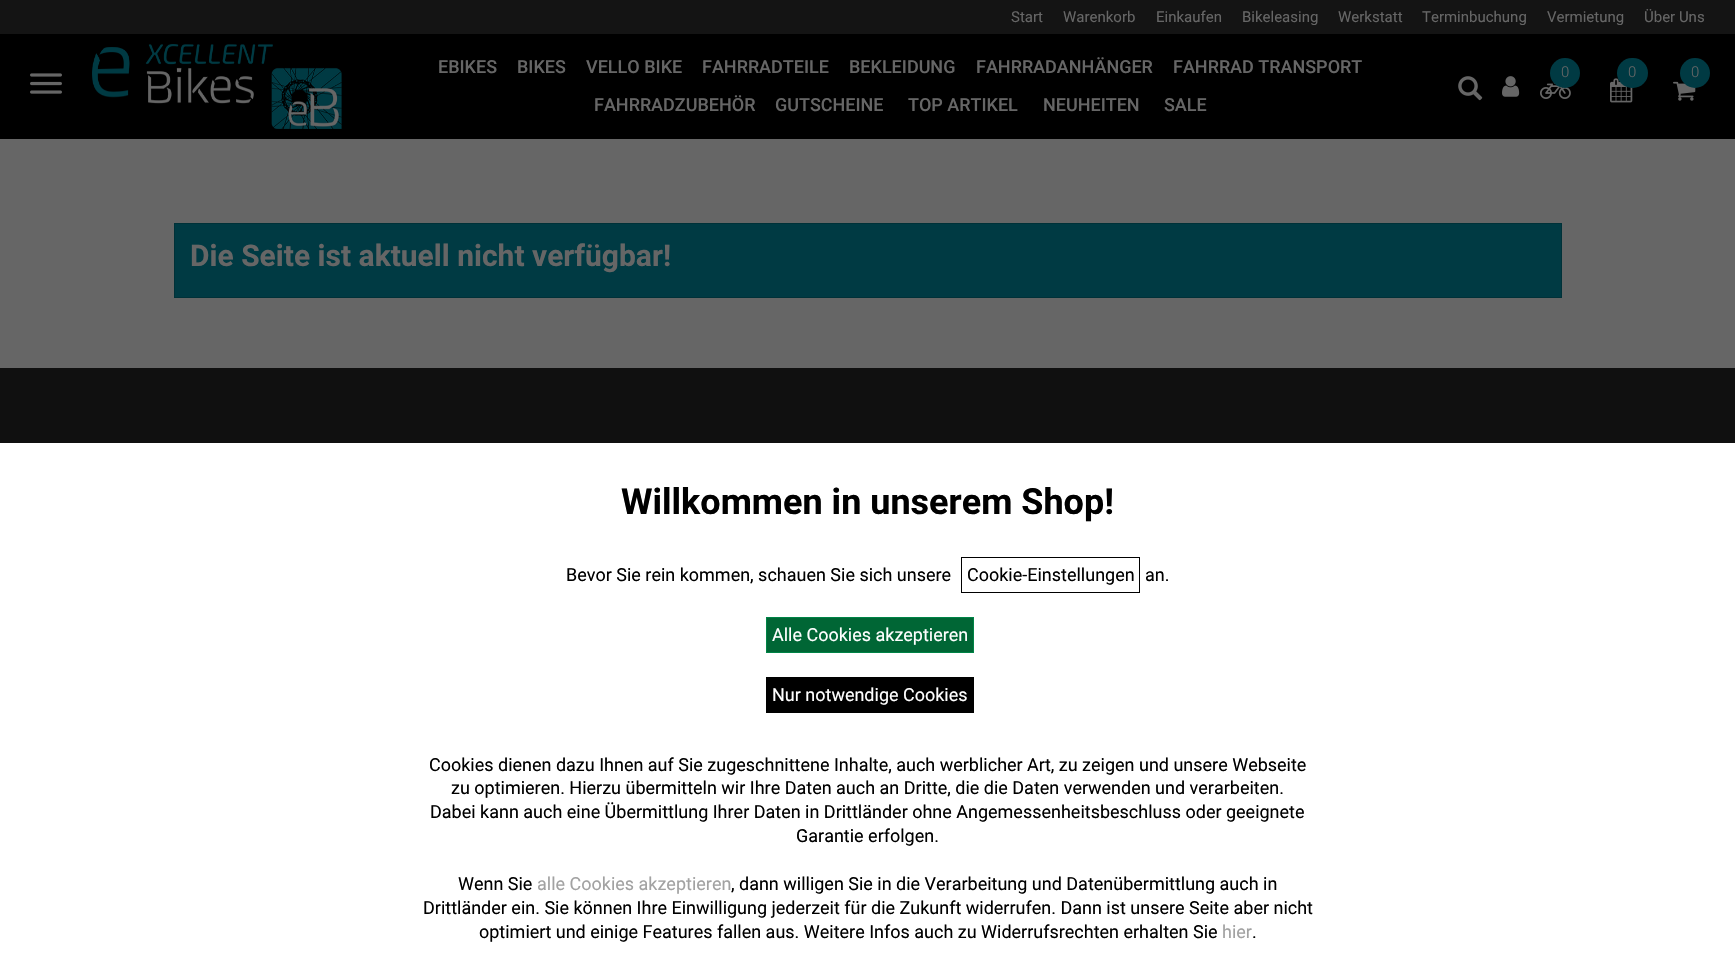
void draw(SkCanvas* canvas) {
    SkPaint paint;
    paint.setAntiAlias(true);
    canvas->clear(0xFF666666);
    paint.setColor(0xFF141414);
    canvas->drawRect(SkRect::MakeXYWH(0, 0, 1735, 34), paint);
    SkFont font1(fontMgr->matchFamilyStyle("Roboto", SkFontStyle::Normal()), 15);
    font1.setSubpixel(true);
    paint.setColor(0xFF666666);
    canvas->drawString("Start", 1011, 22, font1, paint);
    canvas->drawString("Warenkorb", 1063, 22, font1, paint);
    canvas->drawString("Einkaufen", 1156, 22, font1, paint);
    canvas->drawString("Bikeleasing", 1242, 22, font1, paint);
    canvas->drawString("Werkstatt", 1338, 22, font1, paint);
    canvas->drawString("Terminbuchung", 1422, 22, font1, paint);
    canvas->drawString("Vermietung", 1547, 22, font1, paint);
    canvas->drawString("Über Uns", 1644, 22, font1, paint);
    paint.setColor(0xFF000000);
    canvas->drawRect(SkRect::MakeXYWH(0, 34, 1735, 105), paint);
    canvas->drawImageRect(SkImages::DeferredFromEncodedData(SkData::MakeFromFileName("img1.png")), SkRect::MakeXYWH(30, 73, 32, 21), SkSamplingOptions());
    canvas->drawImageRect(SkImages::DeferredFromEncodedData(SkData::MakeFromFileName("img2.png")), SkRect::MakeXYWH(92, 44, 250, 85), SkSamplingOptions());
    SkFont font2(fontMgr->matchFamilyStyle("Roboto", SkFontStyle(500, SkFontStyle::kNormal_Width, SkFontStyle::kUpright_Slant)), 18);
    font2.setSubpixel(true);
    paint.setColor(0xFF666666);
    canvas->drawString("EBIKES", 438, 73, font2, paint);
    canvas->drawString("BIKES", 517, 73, font2, paint);
    canvas->drawString("VELLO BIKE", 586, 73, font2, paint);
    canvas->drawString("FAHRRADTEILE", 702, 73, font2, paint);
    canvas->drawString("BEKLEIDUNG", 849, 73, font2, paint);
    canvas->drawString("FAHRRADANHÄNGER", 976, 73, font2, paint);
    canvas->drawString("FAHRRAD TRANSPORT", 1173, 73, font2, paint);
    canvas->drawString("FAHRRADZUBEHÖR", 594, 111, font2, paint);
    canvas->drawString("GUTSCHEINE", 775, 111, font2, paint);
    canvas->drawString("TOP ARTIKEL", 908, 111, font2, paint);
    canvas->drawString("NEUHEITEN", 1043, 111, font2, paint);
    canvas->drawString("SALE", 1164, 111, font2, paint);
    canvas->drawImageRect(SkImages::DeferredFromEncodedData(SkData::MakeFromFileName("img3.png")), SkRect::MakeXYWH(1540, 82, 31, 17), SkSamplingOptions());
    paint.setColor(0xFF003A43);
    canvas->drawCircle(1565, 73, 15, paint);
    SkFont font3(fontMgr->matchFamilyStyle("Roboto", SkFontStyle(300, SkFontStyle::kNormal_Width, SkFontStyle::kUpright_Slant)), 15);
    font3.setSubpixel(true);
    paint.setColor(0xFF666666);
    canvas->drawString("0", 1561, 77, font3, paint);
    canvas->drawImageRect(SkImages::DeferredFromEncodedData(SkData::MakeFromFileName("img4.png")), SkRect::MakeXYWH(1610, 78, 23, 25), SkSamplingOptions());
    paint.setColor(0xFF003A43);
    canvas->drawRoundRect(SkRect::MakeXYWH(1617, 58, 31, 30), 15, 15, paint);
    paint.setColor(0xFF666666);
    canvas->drawString("0", 1628, 77, font3, paint);
    canvas->drawImageRect(SkImages::DeferredFromEncodedData(SkData::MakeFromFileName("img5.png")), SkRect::MakeXYWH(1673, 81, 23, 20), SkSamplingOptions());
    paint.setColor(0xFF003A43);
    canvas->drawCircle(1695, 73, 15, paint);
    paint.setColor(0xFF666666);
    canvas->drawString("0", 1691, 77, font3, paint);
    canvas->drawImageRect(SkImages::DeferredFromEncodedData(SkData::MakeFromFileName("img6.png")), SkRect::MakeXYWH(1458, 76, 25, 25), SkSamplingOptions());
    canvas->drawImageRect(SkImages::DeferredFromEncodedData(SkData::MakeFromFileName("img7.png")), SkRect::MakeXYWH(1502, 76, 18, 21), SkSamplingOptions());
    paint.setColor(0xFF003A43);
    canvas->drawRect(SkRect::MakeXYWH(174.5f, 223.5f, 1387, 74), paint);
    paint.setStyle(SkPaint::kStroke_Style);
    paint.setStrokeWidth(1);
    paint.setColor(0xFF003138);
    canvas->drawRect(SkRect::MakeXYWH(174.5f, 223.5f, 1387, 74), paint);
    SkFont font4(fontMgr->matchFamilyStyle("Roboto", SkFontStyle::Bold()), 30);
    font4.setSubpixel(true);
    paint.setStyle(SkPaint::kFill_Style);
    paint.setColor(0xFF666666);
    canvas->drawString("Die Seite ist aktuell nicht verfügbar!", 190, 266, font4, paint);
    paint.setColor(0xFF101010);
    canvas->drawRect(SkRect::MakeXYWH(0, 368, 1735, 75), paint);
    paint.setColor(0xFFFFFFFF);
    canvas->drawRect(SkRect::MakeXYWH(0, 443, 1735, 521), paint);
    SkFont font5(fontMgr->matchFamilyStyle("Roboto", SkFontStyle::Bold()), 36);
    font5.setSubpixel(true);
    paint.setColor(0xFF000000);
    canvas->drawString("Willkommen in unserem Shop!", 621, 514, font5, paint);
    SkFont font6(fontMgr->matchFamilyStyle("Roboto", SkFontStyle::Normal()), 18);
    font6.setSubpixel(true);
    canvas->drawString("Bevor Sie rein kommen, schauen Sie sich unsere", 566, 581, font6, paint);
    paint.setStyle(SkPaint::kStroke_Style);
    canvas->drawRect(SkRect::MakeXYWH(961.5f, 557.5f, 178, 35), paint);
    paint.setStyle(SkPaint::kFill_Style);
    canvas->drawString("Cookie-Einstellungen", 967, 581, font6, paint);
    canvas->drawString("an.", 1145, 581, font6, paint);
    paint.setColor(0xFF006635);
    canvas->drawRect(SkRect::MakeXYWH(766.5f, 617.5f, 207, 35), paint);
    paint.setStyle(SkPaint::kStroke_Style);
    paint.setColor(0xFF008446);
    canvas->drawRect(SkRect::MakeXYWH(766.5f, 617.5f, 207, 35), paint);
    paint.setStyle(SkPaint::kFill_Style);
    paint.setColor(0xFFFFFFFF);
    canvas->drawString("Alle Cookies akzeptieren", 772, 641, font6, paint);
    paint.setColor(0xFF000000);
    canvas->drawRect(SkRect::MakeXYWH(766, 677, 208, 36), paint);
    paint.setColor(0xFFFFFFFF);
    canvas->drawString("Nur notwendige Cookies", 772, 701, font6, paint);
    paint.setColor(0xFF000000);
    canvas->drawString("Cookies dienen dazu Ihnen auf Sie zugeschnittene Inhalte, auch werblicher Art, zu zeigen und unsere Webseite", 429, 771, font6, paint);
    canvas->drawString("zu optimieren. Hierzu übermitteln wir Ihre Daten auch an Dritte, die die Daten verwenden und verarbeiten.", 451, 794, font6, paint);
    canvas->drawString("Dabei kann auch eine Übermittlung Ihrer Daten in Drittländer ohne Angemessenheitsbeschluss oder geeignete", 430, 818, font6, paint);
    canvas->drawString("Garantie erfolgen.", 796, 842, font6, paint);
    canvas->drawString("Wenn Sie", 458, 890, font6, paint);
    paint.setColor(0xFFA2A2A2);
    canvas->drawString("alle Cookies akzeptieren", 537, 890, font6, paint);
    paint.setColor(0xFF000000);
    canvas->drawString(", dann willigen Sie in die Verarbeitung und Datenübermittlung auch in", 731, 890, font6, paint);
    canvas->drawString("Drittländer ein. Sie können Ihre Einwilligung jederzeit für die Zukunft widerrufen. Dann ist unsere Seite aber nicht", 423, 914, font6, paint);
    canvas->drawString("optimiert und einige Features fallen aus. Weitere Infos auch zu Widerrufsrechten erhalten Sie", 479, 938, font6, paint);
    paint.setColor(0xFFA2A2A2);
    canvas->drawString("hier", 1222, 938, font6, paint);
    paint.setColor(0xFF000000);
    canvas->drawString(".", 1252, 938, font6, paint);
}
